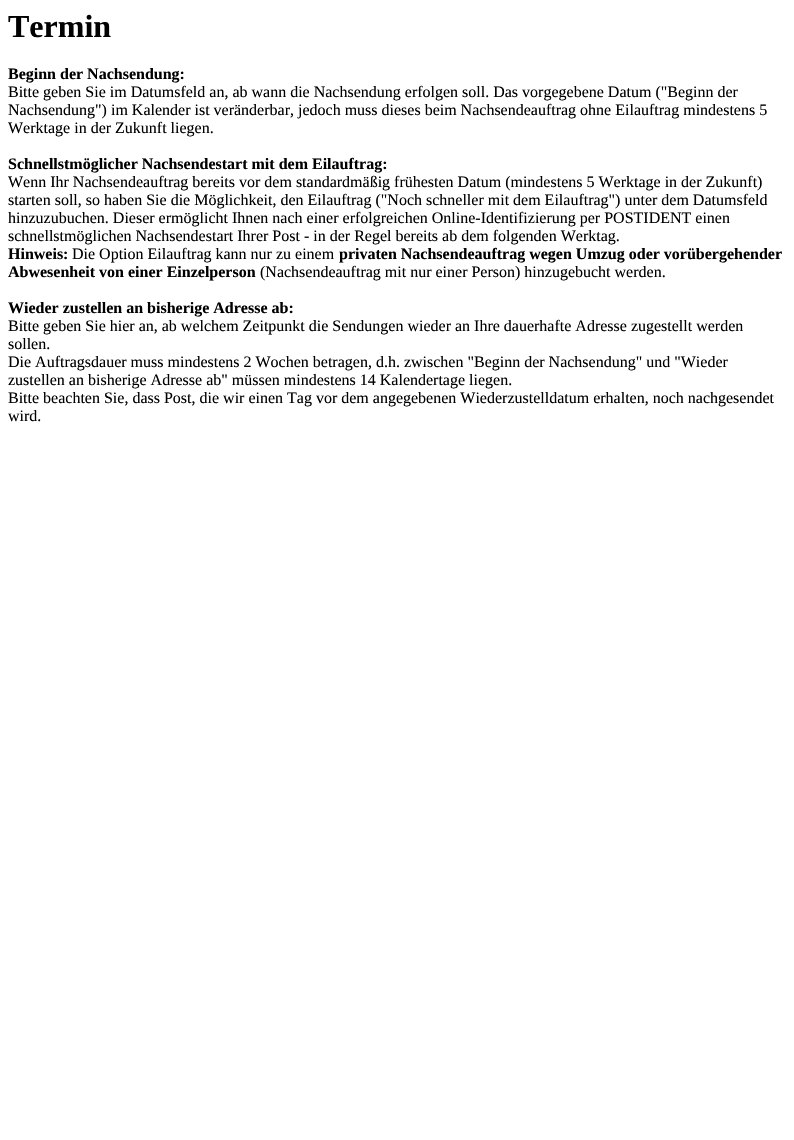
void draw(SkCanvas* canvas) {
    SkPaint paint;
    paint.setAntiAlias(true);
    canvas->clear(0xFFFFFFFF);
    SkFont font1(fontMgr->matchFamilyStyle("Liberation Serif", SkFontStyle::Bold()), 32);
    font1.setSubpixel(true);
    paint.setColor(0xFF000000);
    canvas->drawString("Termin", 8, 37, font1, paint);
    SkFont font2(fontMgr->matchFamilyStyle("Liberation Serif", SkFontStyle::Bold()), 16);
    font2.setSubpixel(true);
    canvas->drawString("Beginn der Nachsendung:", 8, 79, font2, paint);
    SkFont font3(fontMgr->matchFamilyStyle("Liberation Serif", SkFontStyle::Normal()), 16);
    font3.setSubpixel(true);
    canvas->drawString("Bitte geben Sie im Datumsfeld an, ab wann die Nachsendung erfolgen soll. Das vorgegebene Datum (\"Beginn der", 8, 97, font3, paint);
    canvas->drawString("Nachsendung\") im Kalender ist veränderbar, jedoch muss dieses beim Nachsendeauftrag ohne Eilauftrag mindestens 5", 8, 115, font3, paint);
    canvas->drawString("Werktage in der Zukunft liegen.", 8, 133, font3, paint);
    canvas->drawString("Schnellstmöglicher Nachsendestart mit dem Eilauftrag:", 8, 169, font2, paint);
    canvas->drawString("Wenn Ihr Nachsendeauftrag bereits vor dem standardmäßig frühesten Datum (mindestens 5 Werktage in der Zukunft)", 8, 187, font3, paint);
    canvas->drawString("starten soll, so haben Sie die Möglichkeit, den Eilauftrag (\"Noch schneller mit dem Eilauftrag\") unter dem Datumsfeld", 8, 205, font3, paint);
    canvas->drawString("hinzuzubuchen. Dieser ermöglicht Ihnen nach einer erfolgreichen Online-Identifizierung per POSTIDENT einen", 8, 223, font3, paint);
    canvas->drawString("schnellstmöglichen Nachsendestart Ihrer Post - in der Regel bereits ab dem folgenden Werktag.", 8, 241, font3, paint);
    canvas->drawString("Hinweis:", 8, 259, font2, paint);
    canvas->drawString("Die Option Eilauftrag kann nur zu einem", 72, 259, font3, paint);
    canvas->drawString("privaten Nachsendeauftrag wegen Umzug oder vorübergehender", 339, 259, font2, paint);
    canvas->drawString("Abwesenheit von einer Einzelperson", 8, 277, font2, paint);
    canvas->drawString("(Nachsendeauftrag mit nur einer Person) hinzugebucht werden.", 260, 277, font3, paint);
    canvas->drawString("Wieder zustellen an bisherige Adresse ab:", 8, 313, font2, paint);
    canvas->drawString("Bitte geben Sie hier an, ab welchem Zeitpunkt die Sendungen wieder an Ihre dauerhafte Adresse zugestellt werden", 8, 331, font3, paint);
    canvas->drawString("sollen.", 8, 349, font3, paint);
    canvas->drawString("Die Auftragsdauer muss mindestens 2 Wochen betragen, d.h. zwischen \"Beginn der Nachsendung\" und \"Wieder", 8, 367, font3, paint);
    canvas->drawString("zustellen an bisherige Adresse ab\" müssen mindestens 14 Kalendertage liegen.", 8, 385, font3, paint);
    canvas->drawString("Bitte beachten Sie, dass Post, die wir einen Tag vor dem angegebenen Wiederzustelldatum erhalten, noch nachgesendet", 8, 403, font3, paint);
    canvas->drawString("wird.", 8, 421, font3, paint);
}
